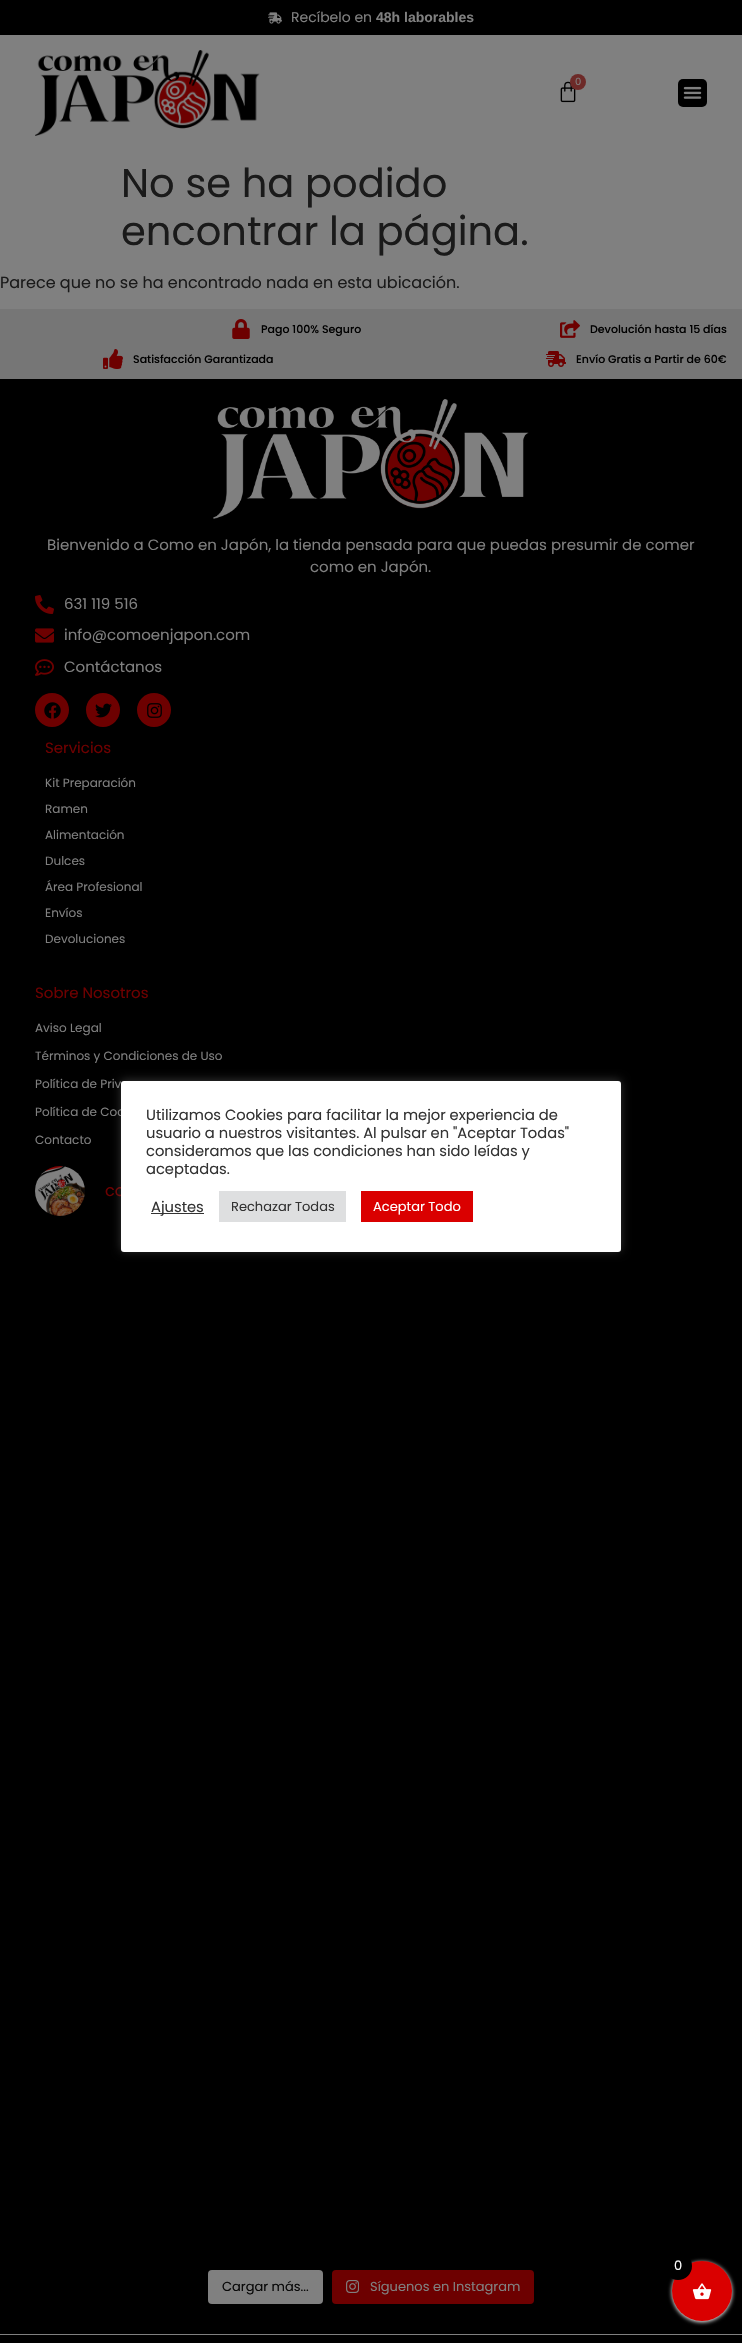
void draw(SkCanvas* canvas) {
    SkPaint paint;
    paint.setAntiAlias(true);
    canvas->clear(0xFF808080);
    paint.setColor(0xFF000000);
    canvas->drawRect(SkRect::MakeXYWH(0, 0, 742, 35), paint);
    canvas->drawImageRect(SkImages::DeferredFromEncodedData(SkData::MakeFromFileName("img1.png")), SkRect::MakeXYWH(268, 12, 14, 12), SkSamplingOptions());
    SkFont font1(fontMgr->matchFamilyStyle("Poppins", SkFontStyle::Normal()), 14);
    font1.setSubpixel(true);
    paint.setColor(0xFF808080);
    canvas->drawString("Recíbelo en", 291, 22, font1, paint);
    SkFont font2(fontMgr->matchFamilyStyle("Liberation Sans", SkFontStyle::Bold()), 14);
    font2.setSubpixel(true);
    canvas->drawString("48h laborables", 376, 22, font2, paint);
    canvas->drawImageRect(SkImages::DeferredFromEncodedData(SkData::MakeFromFileName("img2.png")), SkRect::MakeXYWH(35, 50, 225, 86), SkSamplingOptions());
    canvas->drawImageRect(SkImages::DeferredFromEncodedData(SkData::MakeFromFileName("img3.png")), SkRect::MakeXYWH(560, 81, 16, 22), SkSamplingOptions());
    paint.setColor(0xFF6D2A28);
    canvas->drawCircle(578, 82, 8, paint);
    SkFont font3(fontMgr->matchFamilyStyle("Poppins", SkFontStyle::Normal()), 10);
    font3.setSubpixel(true);
    paint.setColor(0xFF808080);
    canvas->drawString("0", 575, 85, font3, paint);
    paint.setColor(0xFF000000);
    canvas->drawRoundRect(SkRect::MakeXYWH(678, 79, 29, 28), 5, 5, paint);
    canvas->drawImageRect(SkImages::DeferredFromEncodedData(SkData::MakeFromFileName("img4.png")), SkRect::MakeXYWH(683, 86, 19, 13), SkSamplingOptions());
    SkFont font4(fontMgr->matchFamilyStyle("Poppins", SkFontStyle::Normal()), 40);
    font4.setSubpixel(true);
    paint.setColor(0xFF1A1A1A);
    canvas->drawString("No se ha podido", 121, 197, font4, paint);
    canvas->drawString("encontrar la página.", 121, 245, font4, paint);
    SkFont font5(fontMgr->matchFamilyStyle("Poppins", SkFontStyle::Normal()), 16);
    font5.setSubpixel(true);
    canvas->drawString("Parece que no se ha encontrado nada en esta ubicación.", 0, 288, font5, paint);
    paint.setColor(0xFF767676);
    canvas->drawRect(SkRect::MakeXYWH(0, 309, 742, 70), paint);
    canvas->drawImageRect(SkImages::DeferredFromEncodedData(SkData::MakeFromFileName("img5.png")), SkRect::MakeXYWH(232, 319, 18, 20), SkSamplingOptions());
    SkFont font6(fontMgr->matchFamilyStyle("Poppins", SkFontStyle(500, SkFontStyle::kNormal_Width, SkFontStyle::kUpright_Slant)), 11);
    font6.setSubpixel(true);
    paint.setColor(0xFF000000);
    canvas->drawString("Pago 100% Seguro", 261, 333, font6, paint);
    canvas->drawImageRect(SkImages::DeferredFromEncodedData(SkData::MakeFromFileName("img6.png")), SkRect::MakeXYWH(560, 320, 20, 18), SkSamplingOptions());
    canvas->drawString("Devolución hasta 15 días", 590, 333, font6, paint);
    canvas->drawImageRect(SkImages::DeferredFromEncodedData(SkData::MakeFromFileName("img7.png")), SkRect::MakeXYWH(103, 349, 20, 20), SkSamplingOptions());
    canvas->drawString("Satisfacción Garantizada", 133, 363, font6, paint);
    canvas->drawImageRect(SkImages::DeferredFromEncodedData(SkData::MakeFromFileName("img8.png")), SkRect::MakeXYWH(546, 351, 20, 16), SkSamplingOptions());
    canvas->drawString("Envío Gratis a Partir de 60€", 576, 363, font6, paint);
    canvas->drawRect(SkRect::MakeXYWH(0, 379, 742, 1955), paint);
    canvas->drawImageRect(SkImages::DeferredFromEncodedData(SkData::MakeFromFileName("img9.png")), SkRect::MakeXYWH(213, 399, 316, 120), SkSamplingOptions());
    SkFont font7(fontMgr->matchFamilyStyle("Poppins", SkFontStyle::Normal()), 15);
    font7.setSubpixel(true);
    paint.setColor(0xFF808080);
    canvas->drawString("Bienvenido a Como en Japón, la tienda pensada para que puedas presumir de comer", 47, 550, font7, paint);
    canvas->drawString("como en Japón.", 310, 572, font7, paint);
    canvas->drawImageRect(SkImages::DeferredFromEncodedData(SkData::MakeFromFileName("img10.png")), SkRect::MakeXYWH(35, 595, 19, 19), SkSamplingOptions());
    canvas->drawString("631 119 516", 64, 609, font7, paint);
    canvas->drawImageRect(SkImages::DeferredFromEncodedData(SkData::MakeFromFileName("img11.png")), SkRect::MakeXYWH(35, 628, 19, 15), SkSamplingOptions());
    canvas->drawString("info@comoenjapon.com", 64, 640, font7, paint);
    canvas->drawImageRect(SkImages::DeferredFromEncodedData(SkData::MakeFromFileName("img12.png")), SkRect::MakeXYWH(35, 659, 19, 17), SkSamplingOptions());
    canvas->drawString("Contáctanos", 64, 672, font7, paint);
    paint.setColor(0xFF6D0000);
    canvas->drawCircle(52, 710, 17, paint);
    canvas->drawImageRect(SkImages::DeferredFromEncodedData(SkData::MakeFromFileName("img13.png")), SkRect::MakeXYWH(44, 702, 17, 17), SkSamplingOptions());
    canvas->drawCircle(103, 710, 17, paint);
    canvas->drawImageRect(SkImages::DeferredFromEncodedData(SkData::MakeFromFileName("img14.png")), SkRect::MakeXYWH(95, 703, 17, 15), SkSamplingOptions());
    canvas->drawCircle(154, 710, 17, paint);
    canvas->drawImageRect(SkImages::DeferredFromEncodedData(SkData::MakeFromFileName("img15.png")), SkRect::MakeXYWH(147, 703, 15, 15), SkSamplingOptions());
    canvas->drawString("Servicios", 45, 753, font7, paint);
    SkFont font8(fontMgr->matchFamilyStyle("Poppins", SkFontStyle::Normal()), 12);
    font8.setSubpixel(true);
    paint.setColor(0xFF808080);
    canvas->drawString("Kit Preparación", 45, 787, font8, paint);
    canvas->drawString("Ramen", 45, 813, font8, paint);
    canvas->drawString("Alimentación", 45, 839, font8, paint);
    canvas->drawString("Dulces", 45, 865, font8, paint);
    canvas->drawString("Área Profesional", 45, 891, font8, paint);
    canvas->drawString("Envíos", 45, 917, font8, paint);
    canvas->drawString("Devoluciones", 45, 943, font8, paint);
    paint.setColor(0xFF6D0000);
    canvas->drawString("Sobre Nosotros", 35, 998, font7, paint);
    paint.setColor(0xFF808080);
    canvas->drawString("Aviso Legal", 35, 1032, font8, paint);
    canvas->drawString("Términos y Condiciones de Uso", 35, 1060, font8, paint);
    canvas->drawString("Política de Priv", 35, 1088, font8, paint);
    canvas->drawString("Política de Coo", 35, 1116, font8, paint);
    canvas->drawString("Contacto", 35, 1144, font8, paint);
    canvas->drawImageRect(SkImages::DeferredFromEncodedData(SkData::MakeFromFileName("img16.png")), SkRect::MakeXYWH(35, 1166, 50, 50), SkSamplingOptions());
    paint.setColor(0xFF6D0000);
    canvas->drawString("co", 105, 1196, font5, paint);
    paint.setColor(0xFF808080);
    canvas->drawRoundRect(SkRect::MakeXYWH(208, 2270, 115, 34), 4, 4, paint);
    SkFont font9(fontMgr->matchFamilyStyle("Poppins", SkFontStyle::Normal()), 13);
    font9.setSubpixel(true);
    paint.setColor(0xFF080808);
    canvas->drawString("Cargar más...", 222, 2291, font9, paint);
    paint.setColor(0xFF6D0000);
    canvas->drawRoundRect(SkRect::MakeXYWH(332, 2270, 202, 34), 4, 4, paint);
    canvas->drawImageRect(SkImages::DeferredFromEncodedData(SkData::MakeFromFileName("img17.png")), SkRect::MakeXYWH(346, 2280, 13, 13), SkSamplingOptions());
    paint.setColor(0xFF808080);
    canvas->drawString("Síguenos en Instagram", 370, 2291, font9, paint);
    paint.setColor(0xFF000000);
    canvas->drawRect(SkRect::MakeXYWH(0, 2335, 742, 8), paint);
    paint.setColor(0x4DACABAB);
    paint.setMaskFilter(SkMaskFilter::MakeBlur(kNormal_SkBlurStyle, 5));
    canvas->drawRoundRect(SkRect::MakeXYWH(121, 1080, 500, 171), 3, 3, paint);
    paint.setMaskFilter(nullptr);
    paint.setColor(0xFFFFFFFF);
    canvas->drawRoundRect(SkRect::MakeXYWH(121, 1081, 500, 171), 3, 3, paint);
    SkFont font10(fontMgr->matchFamilyStyle("Poppins", SkFontStyle::Normal()), 14.7f);
    font10.setSubpixel(true);
    paint.setColor(0xFF333333);
    canvas->drawString("Utilizamos Cookies para facilitar la mejor experiencia de", 146, 1120, font10, paint);
    canvas->drawString("usuario a nuestros visitantes. Al pulsar en \"Aceptar Todas\"", 146, 1138, font10, paint);
    canvas->drawString("consideramos que las condiciones han sido leídas y", 146, 1156, font10, paint);
    canvas->drawString("aceptadas.", 146, 1174, font10, paint);
    canvas->drawRect(SkRect::MakeXYWH(151, 1213, 53, 1), paint);
    canvas->drawString("Ajustes", 151, 1212, font10, paint);
    paint.setColor(0xFFDEDFE0);
    canvas->drawRect(SkRect::MakeXYWH(219, 1191, 127, 31), paint);
    paint.setColor(0xFF333333);
    canvas->drawString("Rechazar Todas", 231, 1211, font9, paint);
    paint.setColor(0xFFDA0000);
    canvas->drawRect(SkRect::MakeXYWH(361, 1191, 112, 31), paint);
    paint.setColor(0xFFFFFFFF);
    canvas->drawString("Aceptar Todo", 373, 1211, font9, paint);
    paint.setMaskFilter(SkMaskFilter::MakeBlur(kNormal_SkBlurStyle, 2));
    canvas->drawRoundRect(SkRect::MakeXYWH(672, 2262, 60, 60), 30, 30, paint);
    paint.setMaskFilter(nullptr);
    paint.setColor(0xFFDA0000);
    canvas->drawCircle(702, 2291, 30, paint);
    paint.setColor(0xFF000000);
    canvas->drawCircle(678, 2266, 14, paint);
    paint.setColor(0xFFFFFFFF);
    canvas->drawString("0", 674, 2270, font9, paint);
    canvas->drawImageRect(SkImages::DeferredFromEncodedData(SkData::MakeFromFileName("img18.png")), SkRect::MakeXYWH(692, 2283, 20, 17), SkSamplingOptions());
}
